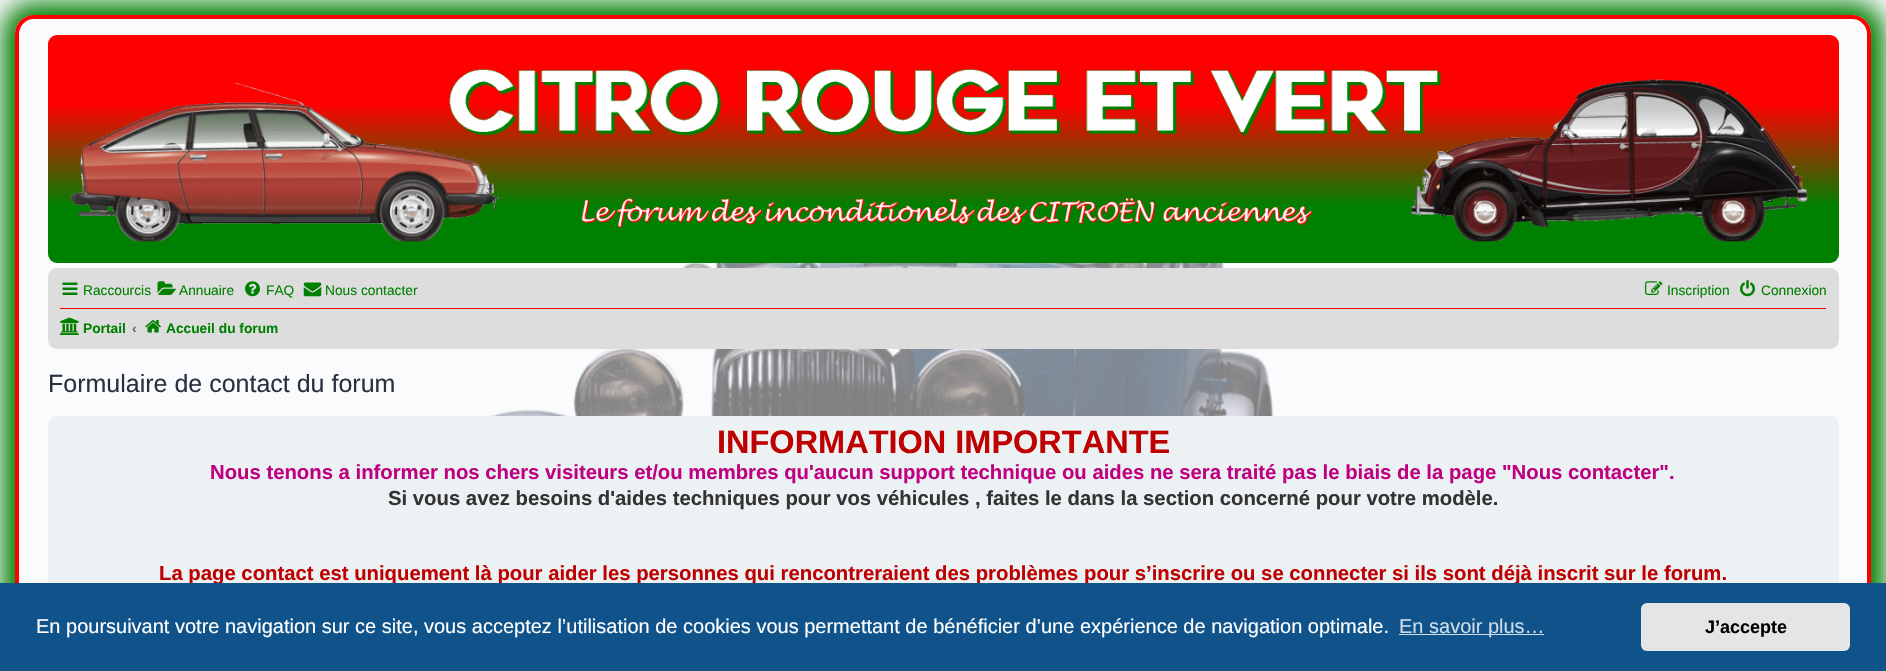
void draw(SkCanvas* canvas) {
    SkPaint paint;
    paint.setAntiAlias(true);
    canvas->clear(0xFFF5F7FA);
    canvas->drawImageRect(SkImages::DeferredFromEncodedData(SkData::MakeFromFileName("img1.png")), SkRect::MakeXYWH(490, 263, 784, 153), SkSamplingOptions());
    canvas->save();
    canvas->clipPath(SkPathBuilder(SkPathFillType::kEvenOdd).moveTo(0, 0).lineTo(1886, 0).lineTo(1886, 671).lineTo(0, 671).close().moveTo(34, 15).lineTo(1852, 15).cubicTo(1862.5f, 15, 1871, 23.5f, 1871, 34).lineTo(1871, 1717).cubicTo(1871, 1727.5f, 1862.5f, 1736, 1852, 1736).lineTo(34, 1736).cubicTo(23.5f, 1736, 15, 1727.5f, 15, 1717).lineTo(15, 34).cubicTo(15, 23.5f, 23.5f, 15, 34, 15).close().detach(), true);
    paint.setColor(0xFF008000);
    paint.setMaskFilter(SkMaskFilter::MakeBlur(kNormal_SkBlurStyle, 12.5f));
    canvas->drawRoundRect(SkRect::MakeXYWH(3, 3, 1881, 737), 31, 31, paint);
    paint.setMaskFilter(nullptr);
    canvas->restore();
    paint.setColor(0x80FFFFFF);
    canvas->drawRoundRect(SkRect::MakeXYWH(17, 17, 1852, 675), 17, 17, paint);
    paint.setStyle(SkPaint::kStroke_Style);
    paint.setStrokeWidth(4);
    paint.setColor(0xFFFF0000);
    canvas->drawRoundRect(SkRect::MakeXYWH(17, 17, 1852, 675), 17, 17, paint);
    paint.setStyle(SkPaint::kFill_Style);
    {
        const SkColor colors[] = {0xFFFF0000, 0xFFFF0000, 0xFF008000, 0xFF008000};
        const float stops[] = {0, 0.3f, 0.75f, 1};
        const SkPoint ends[] = {{943, 35}, {943, 263}};
        paint.setShader(SkGradientShader::MakeLinear(ends, colors, stops, 4, SkTileMode::kClamp));
        paint.setAlpha(255);
    }
    canvas->drawRoundRect(SkRect::MakeXYWH(48, 35, 1791, 228), 9, 9, paint);
    canvas->drawImageRect(SkImages::DeferredFromEncodedData(SkData::MakeFromFileName("img2.png")), SkRect::MakeXYWH(70, 68, 1738, 174), SkSamplingOptions());
    paint.setShader(nullptr);
    paint.setColor(0xFFDDDDDD);
    canvas->drawRoundRect(SkRect::MakeXYWH(48, 268, 1791, 81), 9, 9, paint);
    canvas->drawImageRect(SkImages::DeferredFromEncodedData(SkData::MakeFromFileName("img3.png")), SkRect::MakeXYWH(62, 282, 16, 13), SkSamplingOptions());
    SkFont font1(fontMgr->matchFamilyStyle("Liberation Sans", SkFontStyle::Normal()), 13.75f);
    font1.setSubpixel(true);
    paint.setColor(0xFF008000);
    canvas->drawString("Raccourcis", 83, 295, font1, paint);
    canvas->drawImageRect(SkImages::DeferredFromEncodedData(SkData::MakeFromFileName("img4.png")), SkRect::MakeXYWH(157, 281, 19, 14), SkSamplingOptions());
    canvas->drawString("Annuaire", 179, 295, font1, paint);
    canvas->drawImageRect(SkImages::DeferredFromEncodedData(SkData::MakeFromFileName("img5.png")), SkRect::MakeXYWH(245, 281, 15, 16), SkSamplingOptions());
    canvas->drawString("FAQ", 266, 295, font1, paint);
    canvas->drawImageRect(SkImages::DeferredFromEncodedData(SkData::MakeFromFileName("img6.png")), SkRect::MakeXYWH(303, 282, 19, 15), SkSamplingOptions());
    canvas->drawString("Nous contacter", 325, 295, font1, paint);
    canvas->drawImageRect(SkImages::DeferredFromEncodedData(SkData::MakeFromFileName("img7.png")), SkRect::MakeXYWH(1645, 281, 18, 14), SkSamplingOptions());
    canvas->drawString("Inscription", 1667, 295, font1, paint);
    canvas->drawImageRect(SkImages::DeferredFromEncodedData(SkData::MakeFromFileName("img8.png")), SkRect::MakeXYWH(1740, 280, 15, 17), SkSamplingOptions());
    canvas->drawString("Connexion", 1761, 295, font1, paint);
    paint.setColor(0xFFFF0000);
    canvas->drawRect(SkRect::MakeXYWH(60, 308, 1766, 1), paint);
    canvas->drawImageRect(SkImages::DeferredFromEncodedData(SkData::MakeFromFileName("img9.png")), SkRect::MakeXYWH(60, 317, 19, 18), SkSamplingOptions());
    SkFont font2(fontMgr->matchFamilyStyle("Liberation Sans", SkFontStyle::Bold()), 13.75f);
    font2.setSubpixel(true);
    paint.setColor(0xFF008000);
    canvas->drawString("Portail", 83, 333, font2, paint);
    paint.setColor(0xFF536482);
    canvas->drawString("‹", 132, 333, font2, paint);
    canvas->drawImageRect(SkImages::DeferredFromEncodedData(SkData::MakeFromFileName("img10.png")), SkRect::MakeXYWH(145, 320, 16, 13), SkSamplingOptions());
    paint.setColor(0xFF008000);
    canvas->drawString("Accueil du forum", 166, 333, font2, paint);
    SkFont font3(fontMgr->matchFamilyStyle("Liberation Sans", SkFontStyle::Normal()), 25);
    font3.setSubpixel(true);
    paint.setColor(0xFF28313F);
    canvas->drawString("Formulaire de contact du forum", 48, 392, font3, paint);
    paint.setColor(0xFFECF1F3);
    canvas->drawRoundRect(SkRect::MakeXYWH(48, 416, 1791, 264), 9, 9, paint);
    SkFont font4(fontMgr->matchFamilyStyle("Liberation Sans", SkFontStyle::Bold()), 32.5f);
    font4.setSubpixel(true);
    paint.setColor(0xFFBF0000);
    canvas->drawString("INFORMATION IMPORTANTE", 717, 453, font4, paint);
    SkFont font5(fontMgr->matchFamilyStyle("Liberation Sans", SkFontStyle::Bold()), 20.3f);
    font5.setSubpixel(true);
    paint.setColor(0xFFBF0080);
    canvas->drawString("Nous tenons a informer nos chers visiteurs et/ou membres qu'aucun support technique ou aides ne sera traité pas le biais de la page \"Nous contacter\".", 210, 479, font5, paint);
    paint.setColor(0xFF333333);
    canvas->drawString("Si vous avez besoins d'aides techniques pour vos véhicules , faites le dans la section concerné pour votre modèle.", 388, 505, font5, paint);
    paint.setColor(0xFFBF0000);
    canvas->drawString("La page contact est uniquement là pour aider les personnes qui rencontreraient des problèmes pour s’inscrire ou se connecter si ils sont déjà inscrit sur le forum.", 159, 580, font5, paint);
    paint.setColor(0xFF0F538A);
    canvas->drawRect(SkRect::MakeXYWH(0, 583, 1886, 88), paint);
    SkFont font6(fontMgr->matchFamilyStyle("Liberation Sans", SkFontStyle::Normal()), 20);
    font6.setSubpixel(true);
    paint.setColor(0xFFFFFFFF);
    canvas->drawString("En poursuivant votre navigation sur ce site, vous acceptez l’utilisation de cookies vous permettant de bénéficier d’une expérience de navigation optimale.", 36, 633, font6, paint);
    paint.setColor(0xFFCFDDE8);
    canvas->drawRect(SkRect::MakeXYWH(1399, 634, 145, 1), paint);
    canvas->drawString("En savoir plus…", 1399, 633, font6, paint);
    paint.setColor(0xFFE5E5E5);
    canvas->drawRoundRect(SkRect::MakeXYWH(1641, 603, 209, 48), 6, 6, paint);
    SkFont font7(fontMgr->matchFamilyStyle("Liberation Sans", SkFontStyle::Bold()), 18);
    font7.setSubpixel(true);
    paint.setColor(0xFF000000);
    canvas->drawString("J’accepte", 1705, 633, font7, paint);
}
